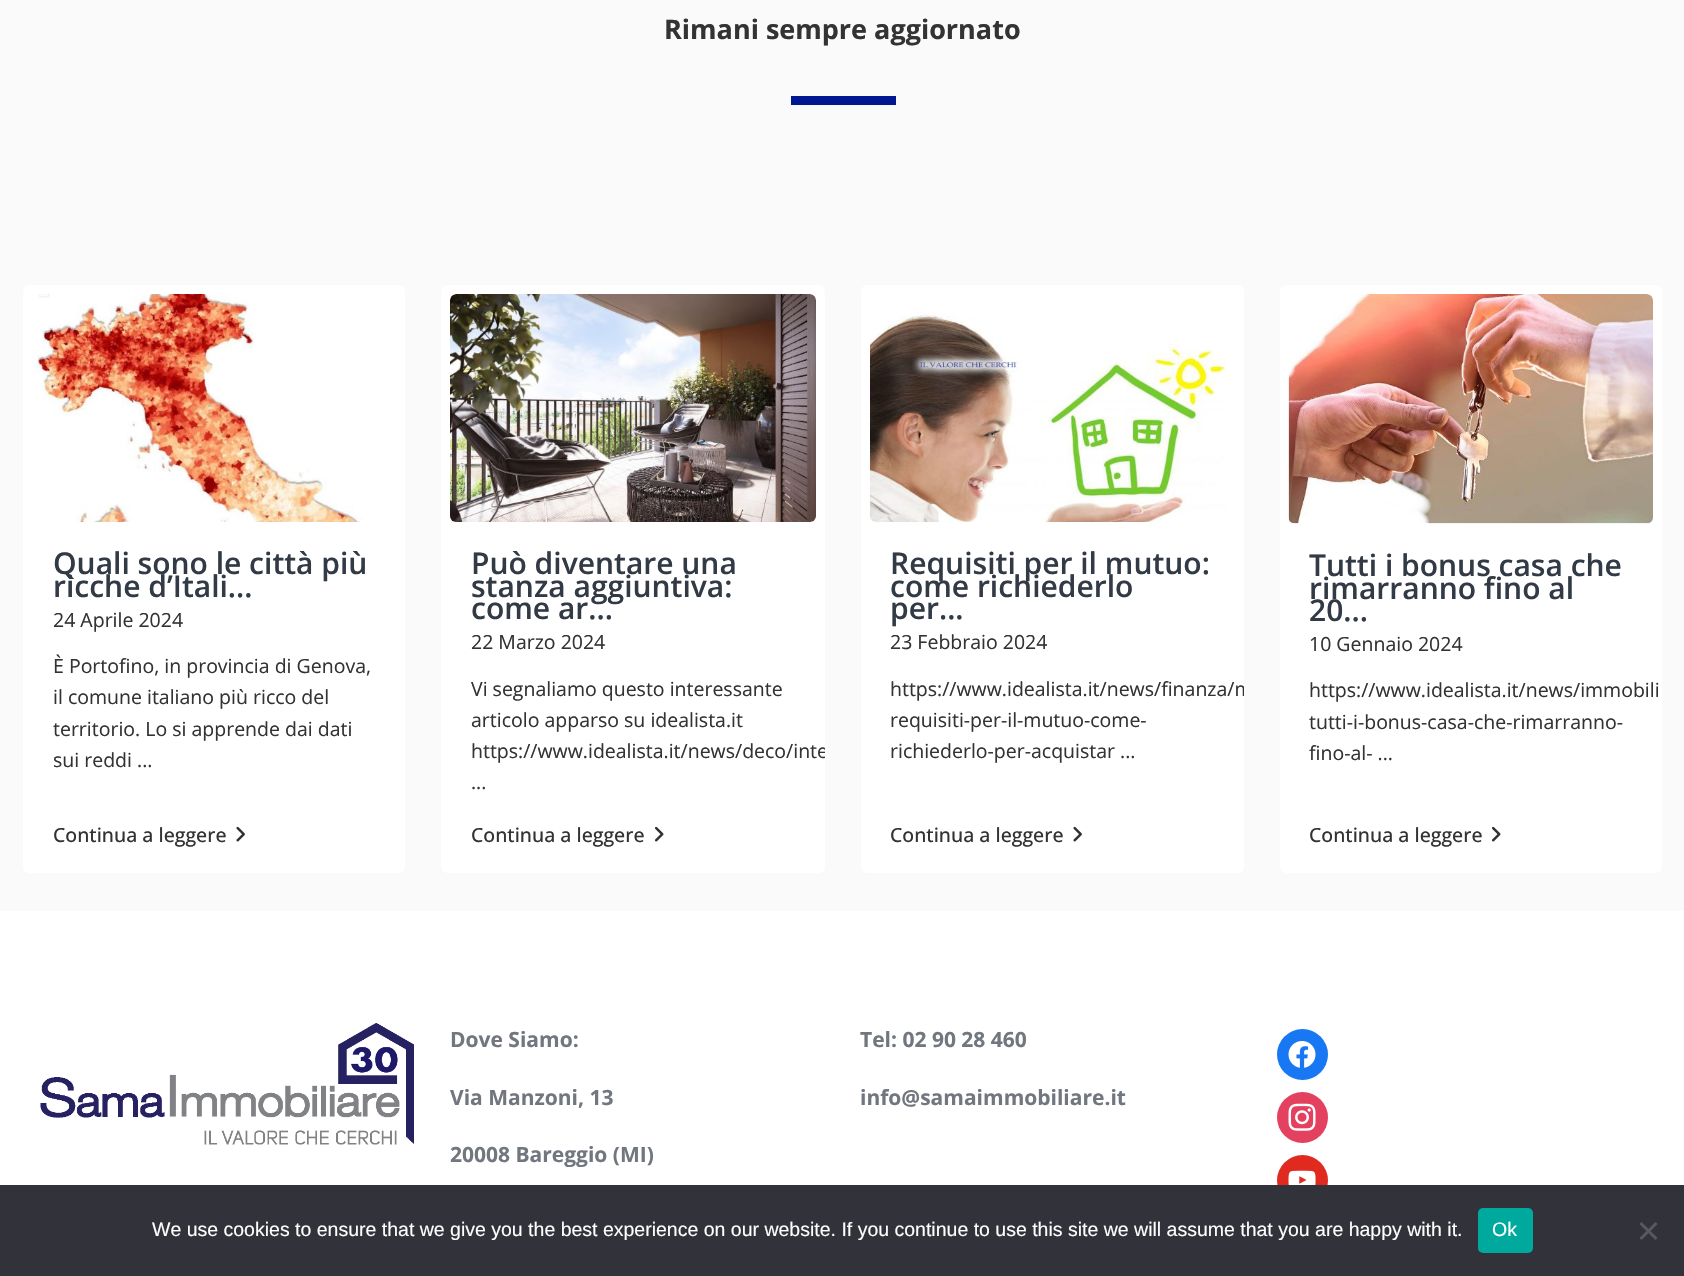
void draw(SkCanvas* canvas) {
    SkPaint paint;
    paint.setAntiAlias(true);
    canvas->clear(0xFFFAFAFA);
    SkFont font1(fontMgr->matchFamilyStyle("Open Sans", SkFontStyle::Bold()), 27);
    font1.setSubpixel(true);
    paint.setColor(0xFF333333);
    canvas->drawString("Rimani sempre aggiornato", 664, 39, font1, paint);
    paint.setColor(0xFF011791);
    canvas->drawRect(SkRect::MakeXYWH(791, 96, 105, 9), paint);
    paint.setColor(0xFFFFFFFF);
    canvas->drawRoundRect(SkRect::MakeXYWH(23, 285, 382, 588), 6, 6, paint);
    canvas->drawImageRect(SkImages::DeferredFromEncodedData(SkData::MakeFromFileName("img1.png")), SkRect::MakeXYWH(32, 294, 332, 228), SkSamplingOptions());
    SkFont font2(fontMgr->matchFamilyStyle("Open Sans", SkFontStyle(600, SkFontStyle::kNormal_Width, SkFontStyle::kUpright_Slant)), 30);
    font2.setSubpixel(true);
    paint.setColor(0xFF323A45);
    canvas->drawString("Quali sono le città più", 53, 574, font2, paint);
    canvas->drawString("ricche d’Itali...", 53, 597, font2, paint);
    SkFont font3(fontMgr->matchFamilyStyle("Open Sans", SkFontStyle::Normal()), 19.5f);
    font3.setSubpixel(true);
    paint.setColor(0xFF333333);
    canvas->drawString("24 Aprile 2024", 53, 627, font3, paint);
    canvas->drawString("È Portofino, in provincia di Genova,", 53, 673, font3, paint);
    canvas->drawString("il comune italiano più ricco del", 53, 704, font3, paint);
    canvas->drawString("territorio. Lo si apprende dai dati", 53, 736, font3, paint);
    canvas->drawString("sui reddi ...", 53, 767, font3, paint);
    SkFont font4(fontMgr->matchFamilyStyle("Open Sans", SkFontStyle(500, SkFontStyle::kNormal_Width, SkFontStyle::kUpright_Slant)), 19.5f);
    font4.setSubpixel(true);
    canvas->drawString("Continua a leggere", 53, 842, font4, paint);
    canvas->drawImageRect(SkImages::DeferredFromEncodedData(SkData::MakeFromFileName("img2.png")), SkRect::MakeXYWH(236, 826, 9, 16), SkSamplingOptions());
    paint.setColor(0xFFFFFFFF);
    canvas->drawRoundRect(SkRect::MakeXYWH(441, 285, 384, 588), 6, 6, paint);
    canvas->drawImageRect(SkImages::DeferredFromEncodedData(SkData::MakeFromFileName("img3.png")), SkRect::MakeXYWH(450, 294, 366, 228), SkSamplingOptions());
    paint.setColor(0xFF323A45);
    canvas->drawString("Può diventare una", 471, 574, font2, paint);
    canvas->drawString("stanza aggiuntiva:", 471, 597, font2, paint);
    canvas->drawString("come ar...", 471, 619, font2, paint);
    paint.setColor(0xFF333333);
    canvas->drawString("22 Marzo 2024", 471, 649, font3, paint);
    canvas->drawString("Vi segnaliamo questo interessante", 471, 696, font3, paint);
    canvas->drawString("articolo apparso su idealista.it", 471, 727, font3, paint);
    canvas->save();
    canvas->clipPath(SkPathBuilder().moveTo(447, 285).lineTo(819, 285).cubicTo(822.5f, 285, 825, 287.5f, 825, 291).lineTo(825, 867).cubicTo(825, 870.5f, 822.5f, 873, 819, 873).lineTo(447, 873).cubicTo(443.5f, 873, 441, 870.5f, 441, 867).lineTo(441, 291).cubicTo(441, 287.5f, 443.5f, 285, 447, 285).close().detach(), true);
    canvas->drawString("https://www.idealista.it/news/deco/inte", 471, 758, font3, paint);
    canvas->restore();
    canvas->drawString("...", 471, 789, font3, paint);
    canvas->drawString("Continua a leggere", 471, 842, font4, paint);
    canvas->drawImageRect(SkImages::DeferredFromEncodedData(SkData::MakeFromFileName("img4.png")), SkRect::MakeXYWH(654, 826, 10, 16), SkSamplingOptions());
    paint.setColor(0xFFFFFFFF);
    canvas->drawRoundRect(SkRect::MakeXYWH(861, 285, 383, 588), 6, 6, paint);
    canvas->drawImageRect(SkImages::DeferredFromEncodedData(SkData::MakeFromFileName("img5.png")), SkRect::MakeXYWH(870, 312, 356, 210), SkSamplingOptions());
    paint.setColor(0xFF323A45);
    canvas->drawString("Requisiti per il mutuo:", 890, 574, font2, paint);
    canvas->drawString("come richiederlo", 890, 597, font2, paint);
    canvas->drawString("per...", 890, 619, font2, paint);
    paint.setColor(0xFF333333);
    canvas->drawString("23 Febbraio 2024", 890, 649, font3, paint);
    canvas->save();
    canvas->clipPath(SkPathBuilder().moveTo(867, 285).lineTo(1238, 285).cubicTo(1241.5f, 285, 1244, 287.5f, 1244, 291).lineTo(1244, 867).cubicTo(1244, 870.5f, 1241.5f, 873, 1238, 873).lineTo(867, 873).cubicTo(863.5f, 873, 861, 870.5f, 861, 867).lineTo(861, 291).cubicTo(861, 287.5f, 863.5f, 285, 867, 285).close().detach(), true);
    canvas->drawString("https://www.idealista.it/news/finanza/m", 890, 696, font3, paint);
    canvas->restore();
    canvas->drawString("requisiti-per-il-mutuo-come-", 890, 727, font3, paint);
    canvas->drawString("richiederlo-per-acquistar ...", 890, 758, font3, paint);
    canvas->drawString("Continua a leggere", 890, 842, font4, paint);
    canvas->drawImageRect(SkImages::DeferredFromEncodedData(SkData::MakeFromFileName("img2.png")), SkRect::MakeXYWH(1073, 826, 9, 16), SkSamplingOptions());
    paint.setColor(0xFFFFFFFF);
    canvas->drawRoundRect(SkRect::MakeXYWH(1280, 285, 382, 588), 6, 6, paint);
    canvas->drawImageRect(SkImages::DeferredFromEncodedData(SkData::MakeFromFileName("img6.png")), SkRect::MakeXYWH(1288, 294, 365, 230), SkSamplingOptions());
    paint.setColor(0xFF323A45);
    canvas->drawString("Tutti i bonus casa che", 1309, 576, font2, paint);
    canvas->drawString("rimarranno fino al", 1309, 599, font2, paint);
    canvas->drawString("20...", 1309, 621, font2, paint);
    paint.setColor(0xFF333333);
    canvas->drawString("10 Gennaio 2024", 1309, 651, font3, paint);
    canvas->drawString("https://www.idealista.it/news/immobili", 1309, 697, font3, paint);
    canvas->drawString("tutti-i-bonus-casa-che-rimarranno-", 1309, 729, font3, paint);
    canvas->drawString("fino-al- ...", 1309, 760, font3, paint);
    canvas->drawString("Continua a leggere", 1309, 842, font4, paint);
    canvas->drawImageRect(SkImages::DeferredFromEncodedData(SkData::MakeFromFileName("img4.png")), SkRect::MakeXYWH(1491, 826, 10, 16), SkSamplingOptions());
    paint.setColor(0xFFFFFFFF);
    canvas->drawRect(SkRect::MakeXYWH(0, 911, 1684, 274), paint);
    canvas->drawImageRect(SkImages::DeferredFromEncodedData(SkData::MakeFromFileName("img7.png")), SkRect::MakeXYWH(40, 1023, 374, 122), SkSamplingOptions());
    SkFont font5(fontMgr->matchFamilyStyle("Open Sans", SkFontStyle::Bold()), 21);
    font5.setSubpixel(true);
    paint.setColor(0xFF72777F);
    canvas->drawString("Dove Siamo:", 450, 1047, font5, paint);
    canvas->drawString("Via Manzoni, 13", 450, 1105, font5, paint);
    canvas->drawString("20008 Bareggio (MI)", 450, 1162, font5, paint);
    canvas->drawString("Tel: 02 90 28 460", 860, 1047, font5, paint);
    canvas->drawString("info@samaimmobiliare.it", 860, 1105, font5, paint);
    paint.setColor(0xFF1877F2);
    canvas->drawCircle(1302.5f, 1054.5f, 25.5f, paint);
    canvas->drawImageRect(SkImages::DeferredFromEncodedData(SkData::MakeFromFileName("img8.png")), SkRect::MakeXYWH(1288, 1041, 28, 27), SkSamplingOptions());
    paint.setColor(0xFFE4405F);
    canvas->drawCircle(1302.5f, 1117.5f, 25.5f, paint);
    canvas->drawImageRect(SkImages::DeferredFromEncodedData(SkData::MakeFromFileName("img9.png")), SkRect::MakeXYWH(1288, 1103, 28, 28), SkSamplingOptions());
    paint.setColor(0xFFE02A20);
    canvas->drawCircle(1302.5f, 1180.5f, 25.5f, paint);
    canvas->drawImageRect(SkImages::DeferredFromEncodedData(SkData::MakeFromFileName("img10.png")), SkRect::MakeXYWH(1288, 1170, 28, 15), SkSamplingOptions());
    paint.setColor(0xFF32323A);
    canvas->drawRect(SkRect::MakeXYWH(0, 1185, 1684, 91), paint);
    SkFont font6(fontMgr->matchFamilyStyle("Liberation Sans", SkFontStyle::Normal()), 19.5f);
    font6.setSubpixel(true);
    paint.setColor(0xFFFFFFFF);
    canvas->drawString("We use cookies to ensure that we give you the best experience on our website. If you continue to use this site we will assume that you are happy with it.", 152, 1236, font6, paint);
    paint.setColor(0xFF00A99D);
    canvas->drawRoundRect(SkRect::MakeXYWH(1478, 1208, 55, 45), 5, 5, paint);
    paint.setColor(0xFFFFFFFF);
    canvas->drawString("Ok", 1492, 1236, font6, paint);
    paint.setColor(0xFF59595D);
    canvas->drawPath(SkPathBuilder().moveTo(1655.5f, 1222).lineTo(1657.5f, 1224).lineTo(1641.5f, 1240).lineTo(1639.5f, 1238).close().detach(), paint);
    canvas->drawPath(SkPathBuilder().moveTo(1639.5f, 1224).lineTo(1641.5f, 1222).lineTo(1657.5f, 1238).lineTo(1655.5f, 1240).close().detach(), paint);
}
